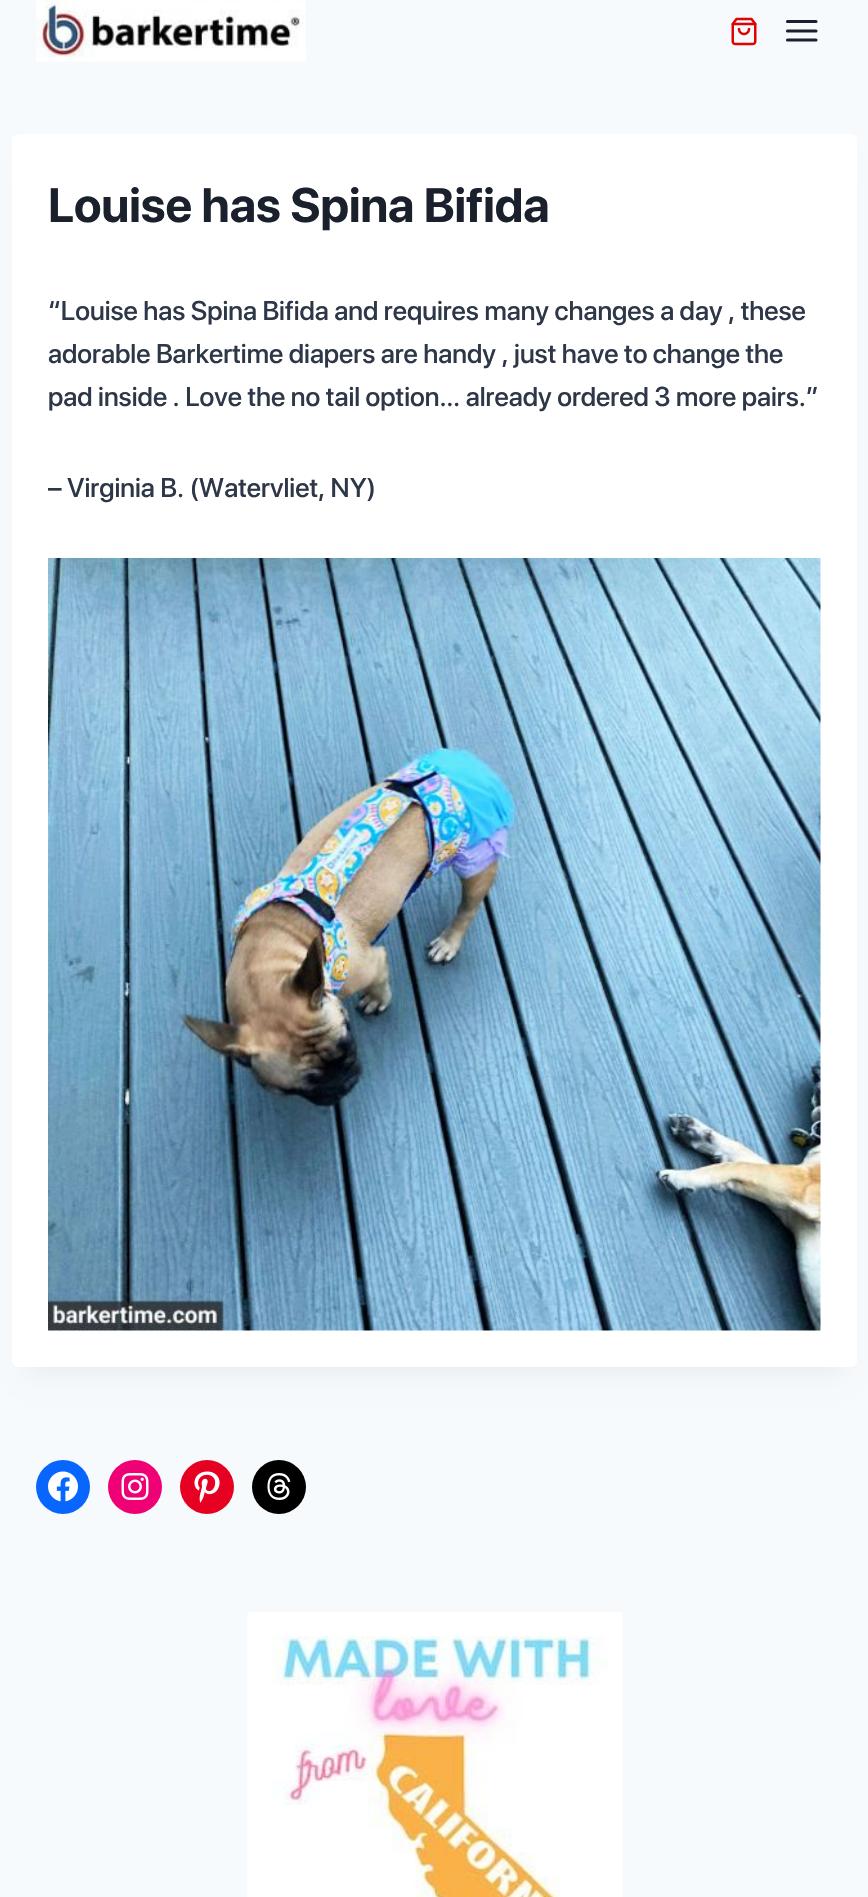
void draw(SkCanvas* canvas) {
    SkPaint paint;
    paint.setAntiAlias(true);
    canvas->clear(0xFFF7FAFC);
    canvas->drawImageRect(SkImages::DeferredFromEncodedData(SkData::MakeFromFileName("img1.png")), SkRect::MakeXYWH(36, 0, 270, 62), SkSamplingOptions());
    canvas->drawImageRect(SkImages::DeferredFromEncodedData(SkData::MakeFromFileName("img2.png")), SkRect::MakeXYWH(731, 17, 26, 29), SkSamplingOptions());
    paint.setStyle(SkPaint::kStroke_Style);
    paint.setStrokeWidth(3.1f);
    paint.setStrokeCap(SkPaint::kRound_Cap);
    paint.setStrokeJoin(SkPaint::kRound_Join);
    paint.setColor(0xFF1A202C);
    canvas->drawPath(SkPathBuilder().moveTo(787.5f, 31).lineTo(816, 31).moveTo(787.5f, 21.5f).lineTo(816, 21.5f).moveTo(787.5f, 40).lineTo(816, 40).detach(), paint);
    paint.setStyle(SkPaint::kFill_Style);
    paint.setColor(0x0D000000);
    paint.setMaskFilter(SkMaskFilter::MakeBlur(kNormal_SkBlurStyle, 11));
    canvas->drawRect(SkRect::MakeXYWH(27, 171, 815, 1203), paint);
    paint.setMaskFilter(nullptr);
    paint.setColor(0xFFFFFFFF);
    canvas->drawRoundRect(SkRect::MakeXYWH(12, 134, 845, 1233), 6, 6, paint);
    SkFont font1(fontMgr->matchFamilyStyle("SF Pro Display", SkFontStyle::Bold()), 48);
    font1.setSubpixel(true);
    paint.setColor(0xFF1A202C);
    canvas->drawString("Louise has Spina Bifida", 48, 222, font1, paint);
    SkFont font2(fontMgr->matchFamilyStyle("SF Pro Display", SkFontStyle(500, SkFontStyle::kNormal_Width, SkFontStyle::kUpright_Slant)), 27);
    font2.setSubpixel(true);
    paint.setColor(0xFF2D3748);
    canvas->drawString("“Louise has Spina Bifida and requires many changes a day , these", 48, 320, font2, paint);
    canvas->drawString("adorable Barkertime diapers are handy , just have to change the", 48, 363, font2, paint);
    canvas->drawString("pad inside . Love the no tail option… already ordered 3 more pairs.”", 48, 406, font2, paint);
    canvas->drawString("– Virginia B. (Watervliet, NY)", 48, 497, font2, paint);
    canvas->drawImageRect(SkImages::DeferredFromEncodedData(SkData::MakeFromFileName("img3.png")), SkRect::MakeXYWH(48, 558, 773, 773), SkSamplingOptions());
    paint.setColor(0xFF0866FF);
    canvas->drawCircle(63, 1487, 27, paint);
    canvas->drawImageRect(SkImages::DeferredFromEncodedData(SkData::MakeFromFileName("img4.png")), SkRect::MakeXYWH(48, 1471, 30, 31), SkSamplingOptions());
    paint.setColor(0xFFF00075);
    canvas->drawCircle(135, 1487, 27, paint);
    canvas->drawImageRect(SkImages::DeferredFromEncodedData(SkData::MakeFromFileName("img5.png")), SkRect::MakeXYWH(121, 1473, 28, 27), SkSamplingOptions());
    paint.setColor(0xFFE60122);
    canvas->drawCircle(207, 1487, 27, paint);
    canvas->drawImageRect(SkImages::DeferredFromEncodedData(SkData::MakeFromFileName("img6.png")), SkRect::MakeXYWH(194, 1471, 26, 32), SkSamplingOptions());
    paint.setColor(0xFF000000);
    canvas->drawCircle(279, 1487, 27, paint);
    canvas->drawImageRect(SkImages::DeferredFromEncodedData(SkData::MakeFromFileName("img7.png")), SkRect::MakeXYWH(267, 1473, 24, 27), SkSamplingOptions());
    canvas->drawImageRect(SkImages::DeferredFromEncodedData(SkData::MakeFromFileName("img8.png")), SkRect::MakeXYWH(247, 1612, 376, 285), SkSamplingOptions());
}
